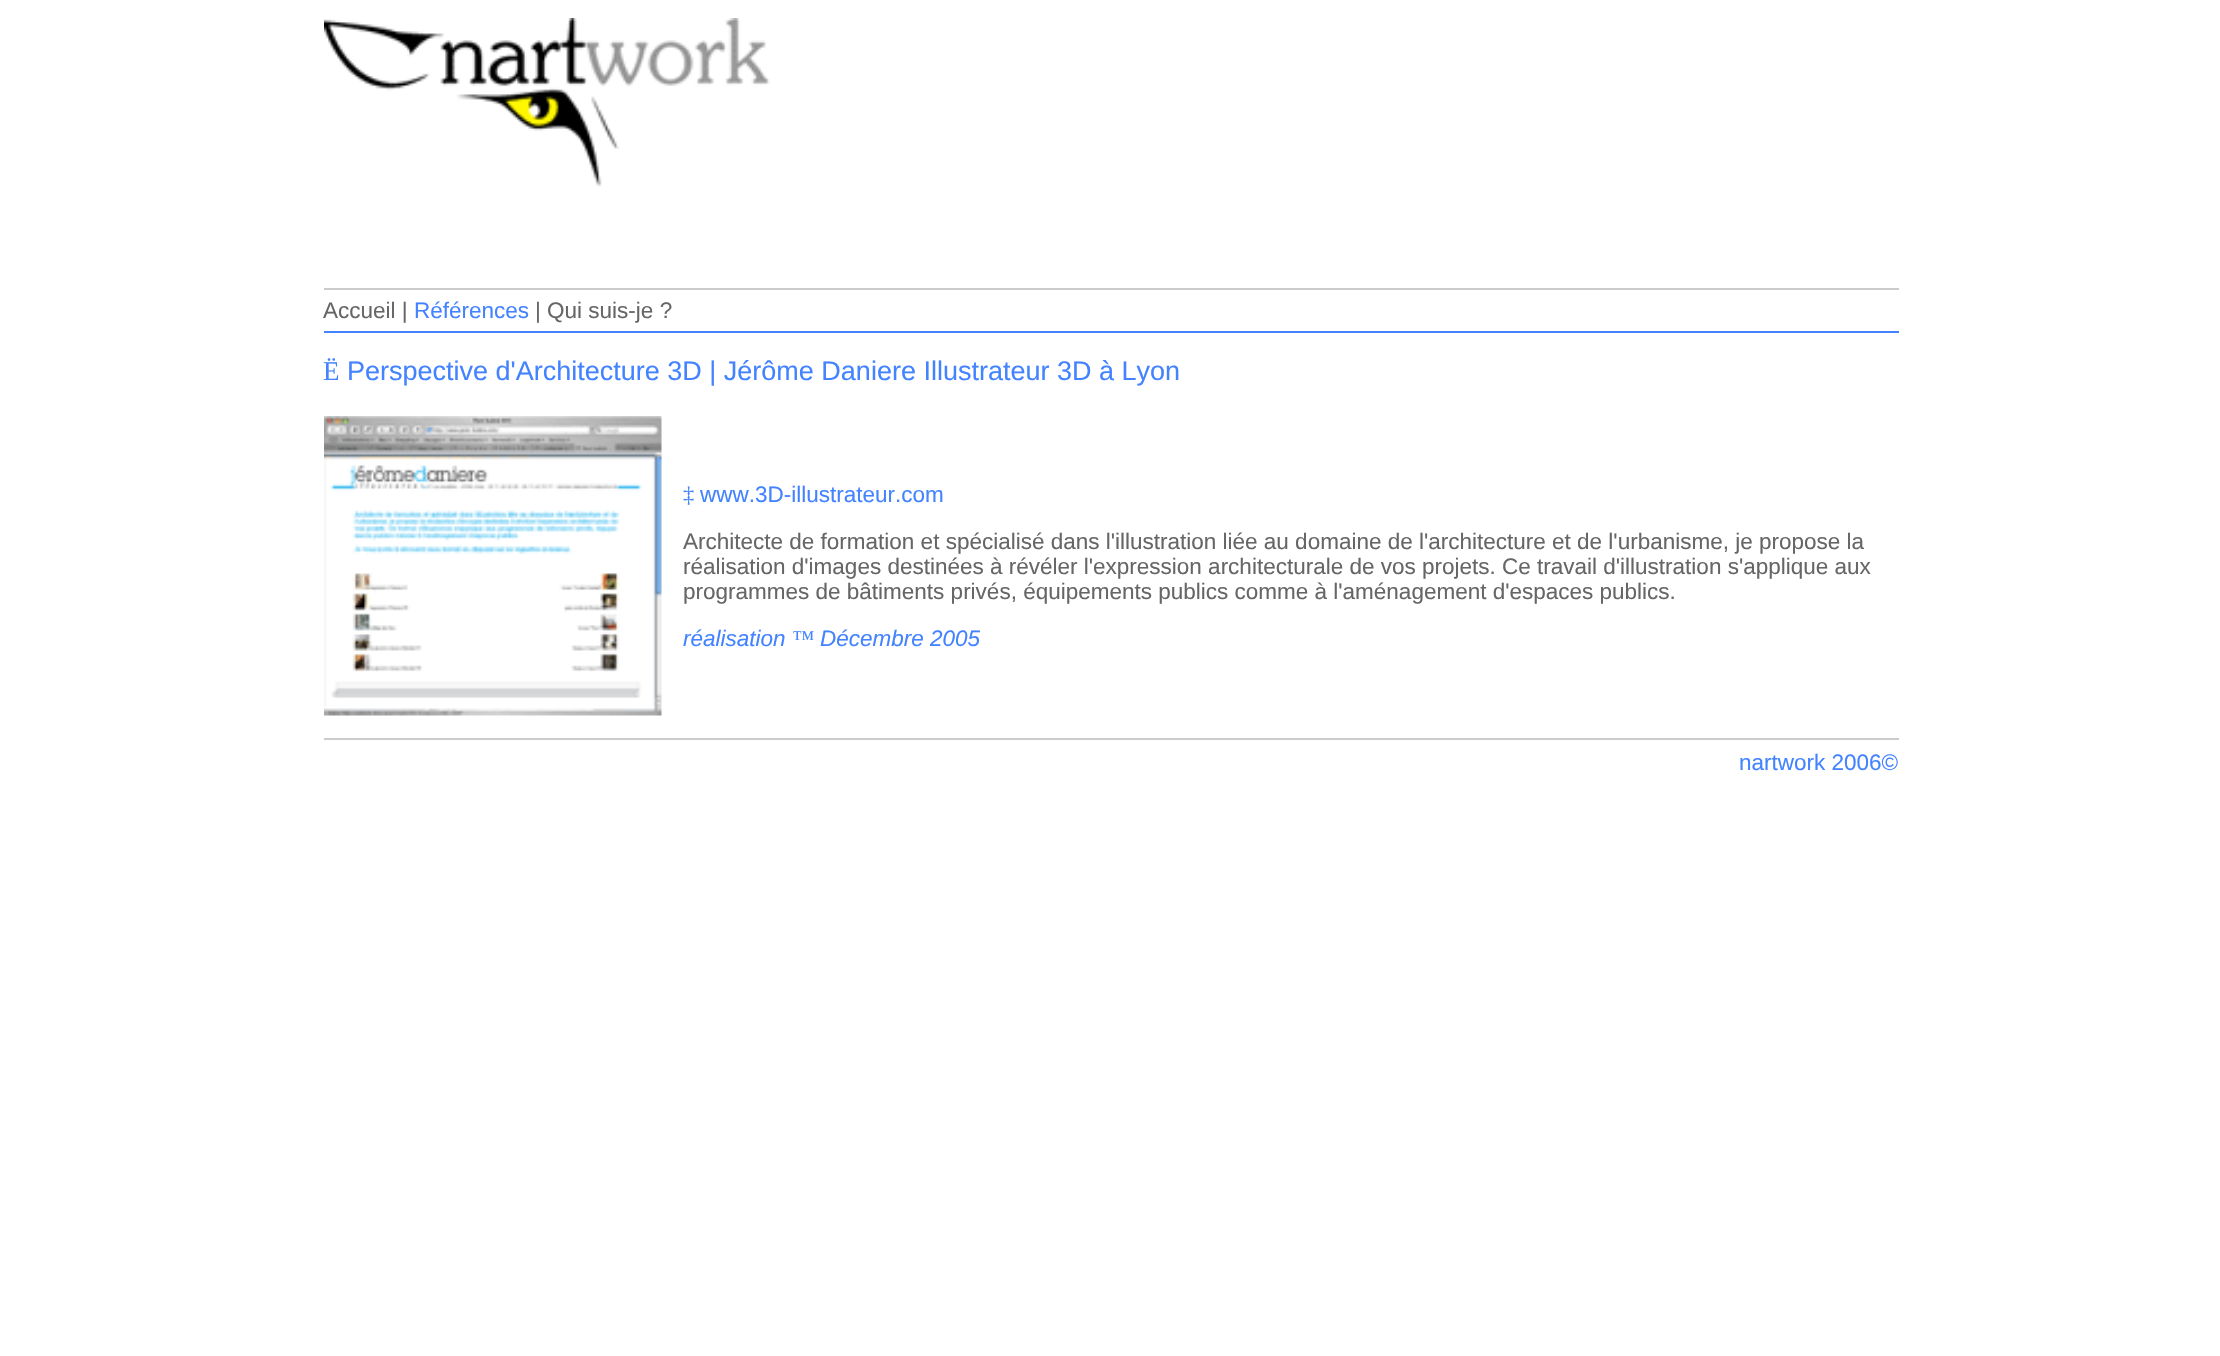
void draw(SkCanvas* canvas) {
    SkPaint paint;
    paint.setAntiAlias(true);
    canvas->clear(0xFFFFFFFF);
    canvas->drawImageRect(SkImages::DeferredFromEncodedData(SkData::MakeFromFileName("img1.png")), SkRect::MakeXYWH(324, 18, 446, 169), SkSamplingOptions());
    paint.setColor(0xFFCCCCCC);
    canvas->drawRect(SkRect::MakeXYWH(324, 288, 1575, 2), paint);
    paint.setColor(0xFF4383FF);
    canvas->drawRect(SkRect::MakeXYWH(324, 331, 1575, 2), paint);
    SkFont font1(fontMgr->matchFamilyStyle("Liberation Sans", SkFontStyle::Normal()), 22.5f);
    font1.setSubpixel(true);
    paint.setColor(0xFF666666);
    canvas->drawString("Accueil |", 323, 318, font1, paint);
    paint.setColor(0xFF4383FF);
    canvas->drawString("Références", 414, 318, font1, paint);
    paint.setColor(0xFF666666);
    canvas->drawString("| Qui suis-je ?", 535, 318, font1, paint);
    SkFont font2(fontMgr->matchFamilyStyle("Liberation Serif", SkFontStyle::Normal()), 27);
    font2.setSubpixel(true);
    paint.setColor(0xFF4383FF);
    canvas->drawString("Ë", 323, 380, font2, paint);
    SkFont font3(fontMgr->matchFamilyStyle("Liberation Sans", SkFontStyle::Normal()), 27);
    font3.setSubpixel(true);
    canvas->drawString("Perspective d'Architecture 3D | Jérôme Daniere Illustrateur 3D à Lyon", 347, 380, font3, paint);
    canvas->drawImageRect(SkImages::DeferredFromEncodedData(SkData::MakeFromFileName("img2.png")), SkRect::MakeXYWH(324, 416, 338, 300), SkSamplingOptions());
    SkFont font4(fontMgr->matchFamilyStyle("Liberation Serif", SkFontStyle::Normal()), 22.5f);
    font4.setSubpixel(true);
    canvas->drawString("‡", 683, 502, font4, paint);
    canvas->drawString("www.3D-illustrateur.com", 700, 502, font1, paint);
    paint.setColor(0xFF666666);
    canvas->drawString("Architecte de formation et spécialisé dans l'illustration liée au domaine de l'architecture et de l'urbanisme, je propose la", 683, 549, font1, paint);
    canvas->drawString("réalisation d'images destinées à révéler l'expression architecturale de vos projets. Ce travail d'illustration s'applique aux", 683, 574, font1, paint);
    canvas->drawString("programmes de bâtiments privés, équipements publics comme à l'aménagement d'espaces publics.", 683, 599, font1, paint);
    SkFont font5(fontMgr->matchFamilyStyle("Liberation Sans", SkFontStyle::Italic()), 22.5f);
    font5.setSubpixel(true);
    paint.setColor(0xFF4383FF);
    canvas->drawString("réalisation", 683, 646, font5, paint);
    SkFont font6(fontMgr->matchFamilyStyle("Liberation Serif", SkFontStyle::Italic()), 22.5f);
    font6.setSubpixel(true);
    canvas->drawString("™", 792, 646, font6, paint);
    canvas->drawString("Décembre 2005", 820, 646, font5, paint);
    paint.setColor(0xFFCCCCCC);
    canvas->drawRect(SkRect::MakeXYWH(324, 738, 1575, 2), paint);
    paint.setColor(0xFF4383FF);
    canvas->drawString("nartwork 2006©", 1739, 770, font1, paint);
}
